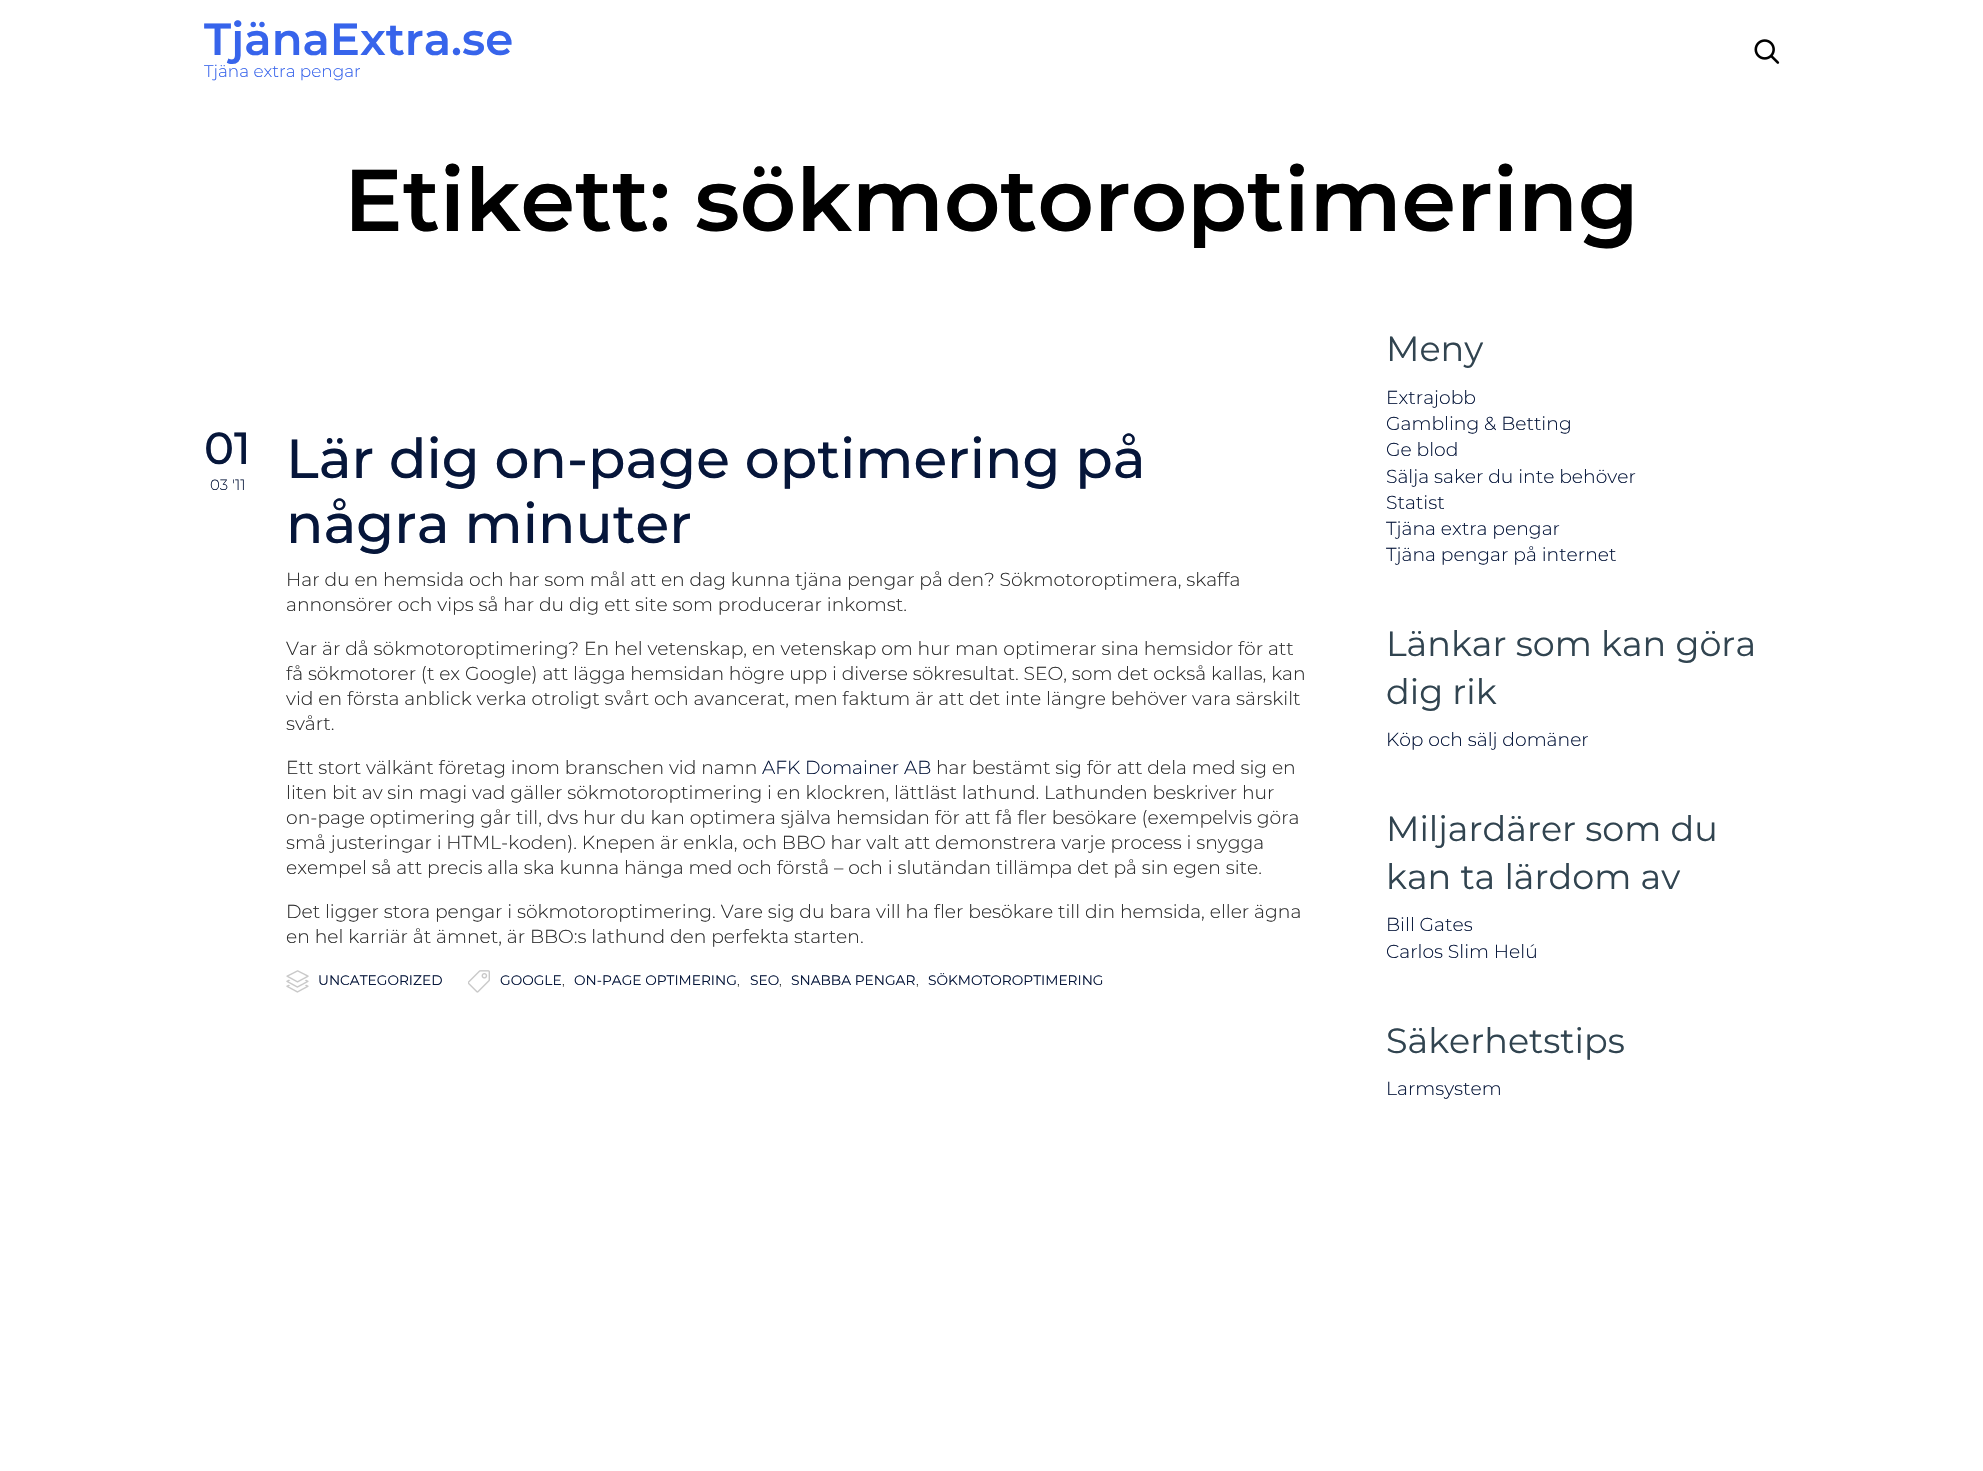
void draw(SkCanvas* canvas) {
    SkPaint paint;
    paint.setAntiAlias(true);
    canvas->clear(0xFFFFFFFF);
    SkFont font1(fontMgr->matchFamilyStyle("Montserrat", SkFontStyle(600, SkFontStyle::kNormal_Width, SkFontStyle::kUpright_Slant)), 45);
    font1.setSubpixel(true);
    paint.setColor(0xFF3764EB);
    canvas->drawString("TjänaExtra.se", 204, 55, font1, paint);
    SkFont font2(fontMgr->matchFamilyStyle("Montserrat", SkFontStyle(300, SkFontStyle::kNormal_Width, SkFontStyle::kUpright_Slant)), 16.9f);
    font2.setSubpixel(true);
    canvas->drawString("Tjäna extra pengar", 204, 77, font2, paint);
    canvas->drawImageRect(SkImages::DeferredFromEncodedData(SkData::MakeFromFileName("img1.png")), SkRect::MakeXYWH(1754, 39, 26, 25), SkSamplingOptions());
    SkFont font3(fontMgr->matchFamilyStyle("Montserrat", SkFontStyle(600, SkFontStyle::kNormal_Width, SkFontStyle::kUpright_Slant)), 87.5f);
    font3.setSubpixel(true);
    paint.setColor(0xFF000000);
    canvas->drawString("Etikett: sökmotoroptimering", 344, 231, font3, paint);
    SkFont font4(fontMgr->matchFamilyStyle("Montserrat", SkFontStyle(500, SkFontStyle::kNormal_Width, SkFontStyle::kUpright_Slant)), 45);
    font4.setSubpixel(true);
    paint.setColor(0xFF06163A);
    canvas->drawString("01", 204, 464, font4, paint);
    SkFont font5(fontMgr->matchFamilyStyle("Montserrat", SkFontStyle(300, SkFontStyle::kNormal_Width, SkFontStyle::kUpright_Slant)), 15);
    font5.setSubpixel(true);
    canvas->drawString("03 '11", 210, 490, font5, paint);
    SkFont font6(fontMgr->matchFamilyStyle("Montserrat", SkFontStyle(500, SkFontStyle::kNormal_Width, SkFontStyle::kUpright_Slant)), 55);
    font6.setSubpixel(true);
    canvas->drawString("Lär dig on-page optimering på", 286, 478, font6, paint);
    canvas->drawString("några minuter", 286, 543, font6, paint);
    SkFont font7(fontMgr->matchFamilyStyle("Montserrat", SkFontStyle(300, SkFontStyle::kNormal_Width, SkFontStyle::kUpright_Slant)), 18.75f);
    font7.setSubpixel(true);
    paint.setColor(0xFF2C2C2C);
    canvas->drawString("Har du en hemsida och har som mål att en dag kunna tjäna pengar på den? Sökmotoroptimera, skaffa", 286, 586, font7, paint);
    canvas->drawString("annonsörer och vips så har du dig ett site som producerar inkomst.", 286, 611, font7, paint);
    canvas->drawString("Var är då sökmotoroptimering? En hel vetenskap, en vetenskap om hur man optimerar sina hemsidor för att", 286, 655, font7, paint);
    canvas->drawString("få sökmotorer (t ex Google) att lägga hemsidan högre upp i diverse sökresultat. SEO, som det också kallas, kan", 286, 680, font7, paint);
    canvas->drawString("vid en första anblick verka otroligt svårt och avancerat, men faktum är att det inte längre behöver vara särskilt", 286, 705, font7, paint);
    canvas->drawString("svårt.", 286, 730, font7, paint);
    canvas->drawString("Ett stort välkänt företag inom branschen vid namn", 286, 774, font7, paint);
    paint.setColor(0xFF06163A);
    canvas->drawString("AFK Domainer AB", 762, 774, font7, paint);
    paint.setColor(0xFF2C2C2C);
    canvas->drawString("har bestämt sig för att dela med sig en", 936, 774, font7, paint);
    canvas->drawString("liten bit av sin magi vad gäller sökmotoroptimering i en klockren, lättläst lathund. Lathunden beskriver hur", 286, 799, font7, paint);
    canvas->drawString("on-page optimering går till, dvs hur du kan optimera själva hemsidan för att få fler besökare (exempelvis göra", 286, 824, font7, paint);
    canvas->drawString("små justeringar i HTML-koden). Knepen är enkla, och BBO har valt att demonstrera varje process i snygga", 286, 849, font7, paint);
    canvas->drawString("exempel så att precis alla ska kunna hänga med och förstå – och i slutändan tillämpa det på sin egen site.", 286, 874, font7, paint);
    canvas->drawString("Det ligger stora pengar i sökmotoroptimering. Vare sig du bara vill ha fler besökare till din hemsida, eller ägna", 286, 918, font7, paint);
    canvas->drawString("en hel karriär åt ämnet, är BBO:s lathund den perfekta starten.", 286, 943, font7, paint);
    canvas->drawImageRect(SkImages::DeferredFromEncodedData(SkData::MakeFromFileName("img2.png")), SkRect::MakeXYWH(286, 970, 23, 23), SkSamplingOptions());
    SkFont font8(fontMgr->matchFamilyStyle("Montserrat", SkFontStyle::Normal()), 13.75f);
    font8.setSubpixel(true);
    paint.setColor(0xFF06163A);
    canvas->drawString("UNCATEGORIZED", 318, 985, font8, paint);
    canvas->drawImageRect(SkImages::DeferredFromEncodedData(SkData::MakeFromFileName("img3.png")), SkRect::MakeXYWH(468, 970, 22, 23), SkSamplingOptions());
    canvas->drawString("GOOGLE", 500, 985, font8, paint);
    SkFont font9(fontMgr->matchFamilyStyle("Montserrat", SkFontStyle(300, SkFontStyle::kNormal_Width, SkFontStyle::kUpright_Slant)), 13.75f);
    font9.setSubpixel(true);
    paint.setColor(0xFF2C2C2C);
    canvas->drawString(",", 562, 985, font9, paint);
    paint.setColor(0xFF06163A);
    canvas->drawString("ON-PAGE OPTIMERING", 574, 985, font8, paint);
    paint.setColor(0xFF2C2C2C);
    canvas->drawString(",", 737, 985, font9, paint);
    paint.setColor(0xFF06163A);
    canvas->drawString("SEO", 750, 985, font8, paint);
    paint.setColor(0xFF2C2C2C);
    canvas->drawString(",", 779, 985, font9, paint);
    paint.setColor(0xFF06163A);
    canvas->drawString("SNABBA PENGAR", 791, 985, font8, paint);
    paint.setColor(0xFF2C2C2C);
    canvas->drawString(",", 916, 985, font9, paint);
    paint.setColor(0xFF06163A);
    canvas->drawString("SÖKMOTOROPTIMERING", 928, 985, font8, paint);
    SkFont font10(fontMgr->matchFamilyStyle("Montserrat", SkFontStyle::Normal()), 35);
    font10.setSubpixel(true);
    paint.setColor(0xFF314450);
    canvas->drawString("Meny", 1386, 361, font10, paint);
    paint.setColor(0xFF06163A);
    canvas->drawString("Extrajobb", 1386, 404, font7, paint);
    canvas->drawString("Gambling & Betting", 1386, 430, font7, paint);
    canvas->drawString("Ge blod", 1386, 456, font7, paint);
    canvas->drawString("Sälja saker du inte behöver", 1386, 483, font7, paint);
    canvas->drawString("Statist", 1386, 509, font7, paint);
    canvas->drawString("Tjäna extra pengar", 1386, 535, font7, paint);
    canvas->drawString("Tjäna pengar på internet", 1386, 561, font7, paint);
    paint.setColor(0xFF314450);
    canvas->drawString("Länkar som kan göra", 1386, 656, font10, paint);
    canvas->drawString("dig rik", 1386, 704, font10, paint);
    paint.setColor(0xFF06163A);
    canvas->drawString("Köp och sälj domäner", 1386, 746, font7, paint);
    paint.setColor(0xFF314450);
    canvas->drawString("Miljardärer som du", 1386, 841, font10, paint);
    canvas->drawString("kan ta lärdom av", 1386, 889, font10, paint);
    paint.setColor(0xFF06163A);
    canvas->drawString("Bill Gates", 1386, 931, font7, paint);
    canvas->drawString("Carlos Slim Helú", 1386, 958, font7, paint);
    paint.setColor(0xFF314450);
    canvas->drawString("Säkerhetstips", 1386, 1053, font10, paint);
    paint.setColor(0xFF06163A);
    canvas->drawString("Larmsystem", 1386, 1095, font7, paint);
}
